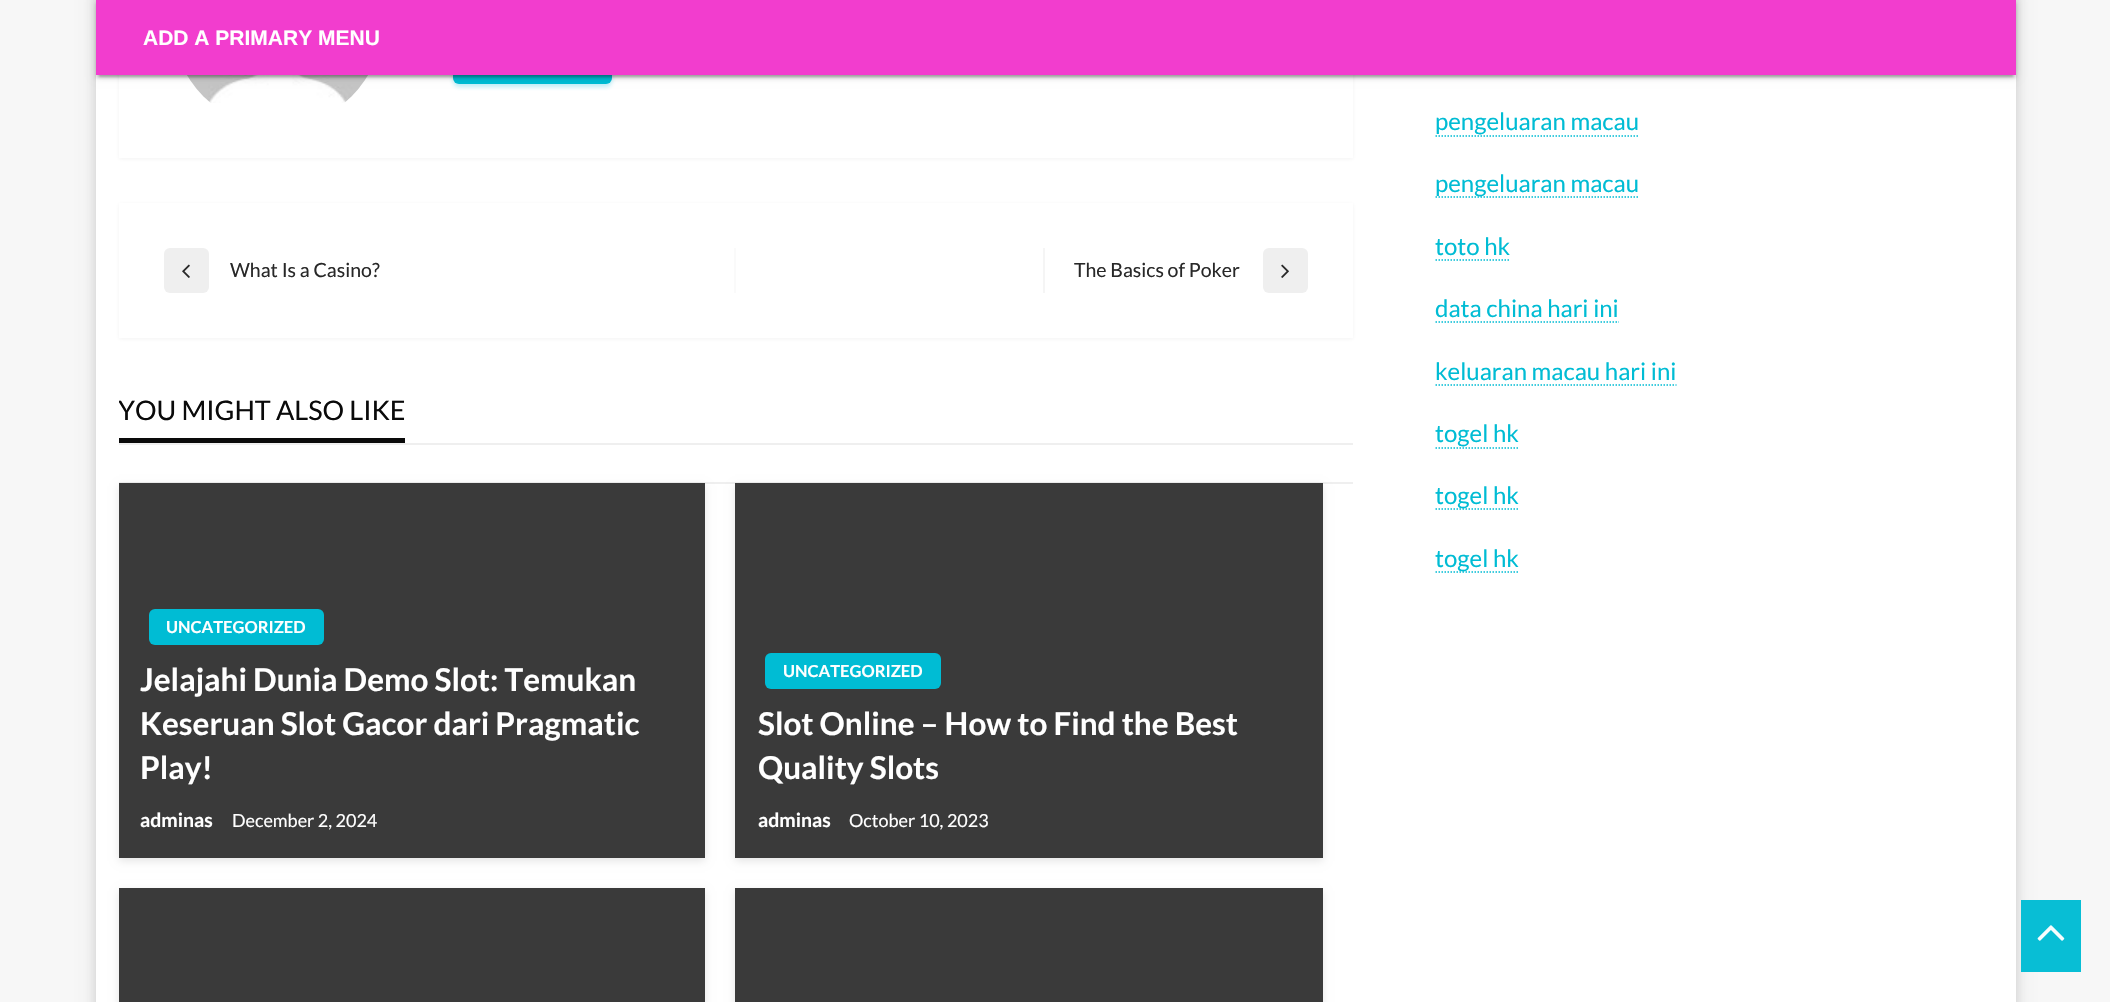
void draw(SkCanvas* canvas) {
    SkPaint paint;
    paint.setAntiAlias(true);
    canvas->clear(0xFFF7F7F7);
    paint.setColor(0x17000000);
    paint.setMaskFilter(SkMaskFilter::MakeBlur(kNormal_SkBlurStyle, 7.5f));
    canvas->drawRect(SkRect::MakeXYWH(96, -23, 1920, 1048), paint);
    paint.setMaskFilter(nullptr);
    paint.setColor(0x1A000000);
    paint.setMaskFilter(SkMaskFilter::MakeBlur(kNormal_SkBlurStyle, 6));
    canvas->drawRect(SkRect::MakeXYWH(96, -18, 1920, 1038), paint);
    paint.setMaskFilter(nullptr);
    paint.setColor(0xFFFFFFFF);
    canvas->drawRect(SkRect::MakeXYWH(96, 75, 1920, 927), paint);
    paint.setColor(0x0D1C1C1C);
    paint.setMaskFilter(SkMaskFilter::MakeBlur(kNormal_SkBlurStyle, 2));
    canvas->drawRect(SkRect::MakeXYWH(119, -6, 1234, 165), paint);
    paint.setMaskFilter(nullptr);
    paint.setColor(0xFFFFFFFF);
    canvas->drawRect(SkRect::MakeXYWH(119, 75, 1234, 83), paint);
    canvas->drawImageRect(SkImages::DeferredFromEncodedData(SkData::MakeFromFileName("img1.png")), SkRect::MakeXYWH(187, 75, 181, 28), SkSamplingOptions());
    paint.setColor(0x4D2FC2E3);
    paint.setMaskFilter(SkMaskFilter::MakeBlur(kNormal_SkBlurStyle, 2));
    canvas->drawRoundRect(SkRect::MakeXYWH(453, 38, 159, 49), 6, 6, paint);
    paint.setMaskFilter(nullptr);
    paint.setColor(0xFF00BCD4);
    canvas->drawRoundRect(SkRect::MakeXYWH(453, 35, 159, 49), 6, 6, paint);
    paint.setColor(0x1F000000);
    paint.setMaskFilter(SkMaskFilter::MakeBlur(kNormal_SkBlurStyle, 4));
    canvas->drawRect(SkRect::MakeXYWH(96, 2, 1920, 75), paint);
    paint.setMaskFilter(nullptr);
    paint.setColor(0x33000000);
    paint.setMaskFilter(SkMaskFilter::MakeBlur(kNormal_SkBlurStyle, 1));
    canvas->drawRect(SkRect::MakeXYWH(99, 8, 1914, 69), paint);
    paint.setMaskFilter(nullptr);
    paint.setColor(0x24000000);
    paint.setMaskFilter(SkMaskFilter::MakeBlur(kNormal_SkBlurStyle, 1.5f));
    canvas->drawRect(SkRect::MakeXYWH(96, 3, 1920, 75), paint);
    paint.setMaskFilter(nullptr);
    paint.setColor(0xFFF23DCE);
    canvas->drawRect(SkRect::MakeXYWH(96, 0, 1920, 75), paint);
    SkFont font1(fontMgr->matchFamilyStyle("Liberation Sans", SkFontStyle::Bold()), 21);
    font1.setSubpixel(true);
    paint.setColor(0xFFFFFFFF);
    canvas->drawString("ADD A PRIMARY MENU", 143, 45, font1, paint);
    paint.setColor(0x0D1C1C1C);
    paint.setMaskFilter(SkMaskFilter::MakeBlur(kNormal_SkBlurStyle, 2));
    canvas->drawRect(SkRect::MakeXYWH(119, 204, 1234, 135), paint);
    paint.setMaskFilter(nullptr);
    paint.setColor(0xFFFFFFFF);
    canvas->drawRect(SkRect::MakeXYWH(119, 203, 1234, 135), paint);
    paint.setColor(0xFFFAFAFA);
    canvas->drawRect(SkRect::MakeXYWH(734, 248, 2, 45), paint);
    paint.setColor(0xFFEFEFEF);
    canvas->drawRoundRect(SkRect::MakeXYWH(164, 248, 45, 45), 6, 6, paint);
    canvas->drawImageRect(SkImages::DeferredFromEncodedData(SkData::MakeFromFileName("img2.png")), SkRect::MakeXYWH(182, 264, 8, 14), SkSamplingOptions());
    SkFont font2(fontMgr->matchFamilyStyle("Lato", SkFontStyle::Normal()), 19.5f);
    font2.setSubpixel(true);
    paint.setColor(0xFF282828);
    canvas->drawString("What Is a Casino?", 230, 277, font2, paint);
    paint.setColor(0xFFF5F5F5);
    canvas->drawRect(SkRect::MakeXYWH(1043, 248, 2, 45), paint);
    paint.setColor(0xFF282828);
    canvas->drawString("The Basics of Poker", 1074, 277, font2, paint);
    paint.setColor(0xFFEFEFEF);
    canvas->drawRoundRect(SkRect::MakeXYWH(1263, 248, 45, 45), 6, 6, paint);
    canvas->drawImageRect(SkImages::DeferredFromEncodedData(SkData::MakeFromFileName("img3.png")), SkRect::MakeXYWH(1281, 264, 8, 14), SkSamplingOptions());
    canvas->drawRect(SkRect::MakeXYWH(119, 482, 1234, 2), paint);
    canvas->drawRect(SkRect::MakeXYWH(119, 443, 1234, 2), paint);
    paint.setColor(0xFF0A0A0A);
    canvas->drawRect(SkRect::MakeXYWH(119, 438, 286, 5), paint);
    canvas->save();
    canvas->clipRect(SkRect::MakeXYWH(119, 383, 1234, 60));
    SkFont font3(fontMgr->matchFamilyStyle("Lato", SkFontStyle::Normal()), 27);
    font3.setSubpixel(true);
    canvas->drawString("YOU MIGHT ALSO LIKE", 118, 420, font3, paint);
    canvas->restore();
    paint.setColor(0x1A000000);
    paint.setMaskFilter(SkMaskFilter::MakeBlur(kNormal_SkBlurStyle, 4));
    canvas->drawRect(SkRect::MakeXYWH(119, 486, 586, 375), paint);
    paint.setMaskFilter(nullptr);
    paint.setColor(0xFF3A3A3A);
    canvas->drawRect(SkRect::MakeXYWH(119, 483, 586, 375), paint);
    paint.setColor(0xFF00BCD4);
    canvas->drawRoundRect(SkRect::MakeXYWH(149, 609, 175, 36), 6, 6, paint);
    SkFont font4(fontMgr->matchFamilyStyle("Lato", SkFontStyle::Bold()), 16.5f);
    font4.setSubpixel(true);
    paint.setColor(0xFFFFFFFF);
    canvas->drawString("UNCATEGORIZED", 166, 633, font4, paint);
    SkFont font5(fontMgr->matchFamilyStyle("Lato", SkFontStyle::Bold()), 31.5f);
    font5.setSubpixel(true);
    canvas->drawString("Jelajahi Dunia Demo Slot: Temukan", 140, 691, font5, paint);
    canvas->drawString("Keseruan Slot Gacor dari Pragmatic", 140, 735, font5, paint);
    canvas->drawString("Play!", 140, 779, font5, paint);
    SkFont font6(fontMgr->matchFamilyStyle("Lato", SkFontStyle::Bold()), 19.5f);
    font6.setSubpixel(true);
    canvas->drawString("adminas", 140, 827, font6, paint);
    SkFont font7(fontMgr->matchFamilyStyle("Lato", SkFontStyle::Normal()), 18);
    font7.setSubpixel(true);
    canvas->drawString("December 2, 2024", 232, 827, font7, paint);
    paint.setColor(0x1A000000);
    paint.setMaskFilter(SkMaskFilter::MakeBlur(kNormal_SkBlurStyle, 4));
    canvas->drawRect(SkRect::MakeXYWH(735, 486, 588, 375), paint);
    paint.setMaskFilter(nullptr);
    paint.setColor(0xFF3A3A3A);
    canvas->drawRect(SkRect::MakeXYWH(735, 483, 588, 375), paint);
    paint.setColor(0xFF00BCD4);
    canvas->drawRoundRect(SkRect::MakeXYWH(765, 653, 176, 36), 6, 6, paint);
    paint.setColor(0xFFFFFFFF);
    canvas->drawString("UNCATEGORIZED", 783, 677, font4, paint);
    canvas->drawString("Slot Online – How to Find the Best", 758, 735, font5, paint);
    canvas->drawString("Quality Slots", 758, 779, font5, paint);
    canvas->drawString("adminas", 758, 827, font6, paint);
    canvas->drawString("October 10, 2023", 849, 827, font7, paint);
    paint.setColor(0x1A000000);
    paint.setMaskFilter(SkMaskFilter::MakeBlur(kNormal_SkBlurStyle, 4));
    canvas->drawRect(SkRect::MakeXYWH(119, 891, 586, 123), paint);
    paint.setMaskFilter(nullptr);
    paint.setColor(0xFF3A3A3A);
    canvas->drawRect(SkRect::MakeXYWH(119, 888, 586, 114), paint);
    paint.setColor(0x1A000000);
    paint.setMaskFilter(SkMaskFilter::MakeBlur(kNormal_SkBlurStyle, 4));
    canvas->drawRect(SkRect::MakeXYWH(735, 891, 588, 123), paint);
    paint.setMaskFilter(nullptr);
    paint.setColor(0xFF3A3A3A);
    canvas->drawRect(SkRect::MakeXYWH(735, 888, 588, 114), paint);
    SkFont font8(fontMgr->matchFamilyStyle("Lato", SkFontStyle::Normal()), 24);
    font8.setSubpixel(true);
    paint.setColor(0xFF00BCD4);
    canvas->drawString("pengeluaran macau", 1435, 130, font8, paint);
    paint.setStyle(SkPaint::kStroke_Style);
    paint.setStrokeWidth(1.5f);
    paint.setPathEffect(SkDashPathEffect::Make({{1.5f, 1.5f}}, 0));
    canvas->drawPath(SkPathBuilder().moveTo(1435.5f, 136).lineTo(1639.5f, 136).detach(), paint);
    paint.setPathEffect(nullptr);
    paint.setPathEffect(SkDashPathEffect::Make({{1.5f, 1.5f}}, 0));
    canvas->drawPath(SkPathBuilder().moveTo(1435.5f, 197).lineTo(1639.5f, 197).detach(), paint);
    paint.setPathEffect(nullptr);
    paint.setStyle(SkPaint::kFill_Style);
    canvas->drawString("pengeluaran macau", 1435, 192, font8, paint);
    canvas->drawString("toto hk", 1435, 255, font8, paint);
    paint.setStyle(SkPaint::kStroke_Style);
    paint.setPathEffect(SkDashPathEffect::Make({{1.5f, 1.5f}}, 0));
    canvas->drawPath(SkPathBuilder().moveTo(1435.5f, 260).lineTo(1510.5f, 260).detach(), paint);
    paint.setPathEffect(nullptr);
    paint.setStyle(SkPaint::kFill_Style);
    canvas->drawString("data china hari ini", 1435, 317, font8, paint);
    paint.setStyle(SkPaint::kStroke_Style);
    paint.setPathEffect(SkDashPathEffect::Make({{1.5f, 1.5f}}, 0));
    canvas->drawPath(SkPathBuilder().moveTo(1435.5f, 322).lineTo(1619, 322).detach(), paint);
    paint.setPathEffect(nullptr);
    paint.setStyle(SkPaint::kFill_Style);
    canvas->drawString("keluaran macau hari ini", 1435, 380, font8, paint);
    paint.setStyle(SkPaint::kStroke_Style);
    paint.setPathEffect(SkDashPathEffect::Make({{1.5f, 1.5f}}, 0));
    canvas->drawPath(SkPathBuilder().moveTo(1435.5f, 385).lineTo(1676.5f, 385).detach(), paint);
    paint.setPathEffect(nullptr);
    paint.setStyle(SkPaint::kFill_Style);
    canvas->drawString("togel hk", 1435, 442, font8, paint);
    paint.setStyle(SkPaint::kStroke_Style);
    paint.setPathEffect(SkDashPathEffect::Make({{1.5f, 1.5f}}, 0));
    canvas->drawPath(SkPathBuilder().moveTo(1435.5f, 448).lineTo(1519, 448).detach(), paint);
    paint.setPathEffect(nullptr);
    paint.setPathEffect(SkDashPathEffect::Make({{1.5f, 1.5f}}, 0));
    canvas->drawPath(SkPathBuilder().moveTo(1435.5f, 509).lineTo(1519, 509).detach(), paint);
    paint.setPathEffect(nullptr);
    paint.setStyle(SkPaint::kFill_Style);
    canvas->drawString("togel hk", 1435, 504, font8, paint);
    paint.setStyle(SkPaint::kStroke_Style);
    paint.setPathEffect(SkDashPathEffect::Make({{1.5f, 1.5f}}, 0));
    canvas->drawPath(SkPathBuilder().moveTo(1435.5f, 572).lineTo(1519, 572).detach(), paint);
    paint.setPathEffect(nullptr);
    paint.setStyle(SkPaint::kFill_Style);
    canvas->drawString("togel hk", 1435, 567, font8, paint);
    paint.setColor(0xF700BCD4);
    canvas->drawRect(SkRect::MakeXYWH(2021, 900, 60, 72), paint);
    canvas->drawImageRect(SkImages::DeferredFromEncodedData(SkData::MakeFromFileName("img4.png")), SkRect::MakeXYWH(2037, 925, 28, 16), SkSamplingOptions());
}
